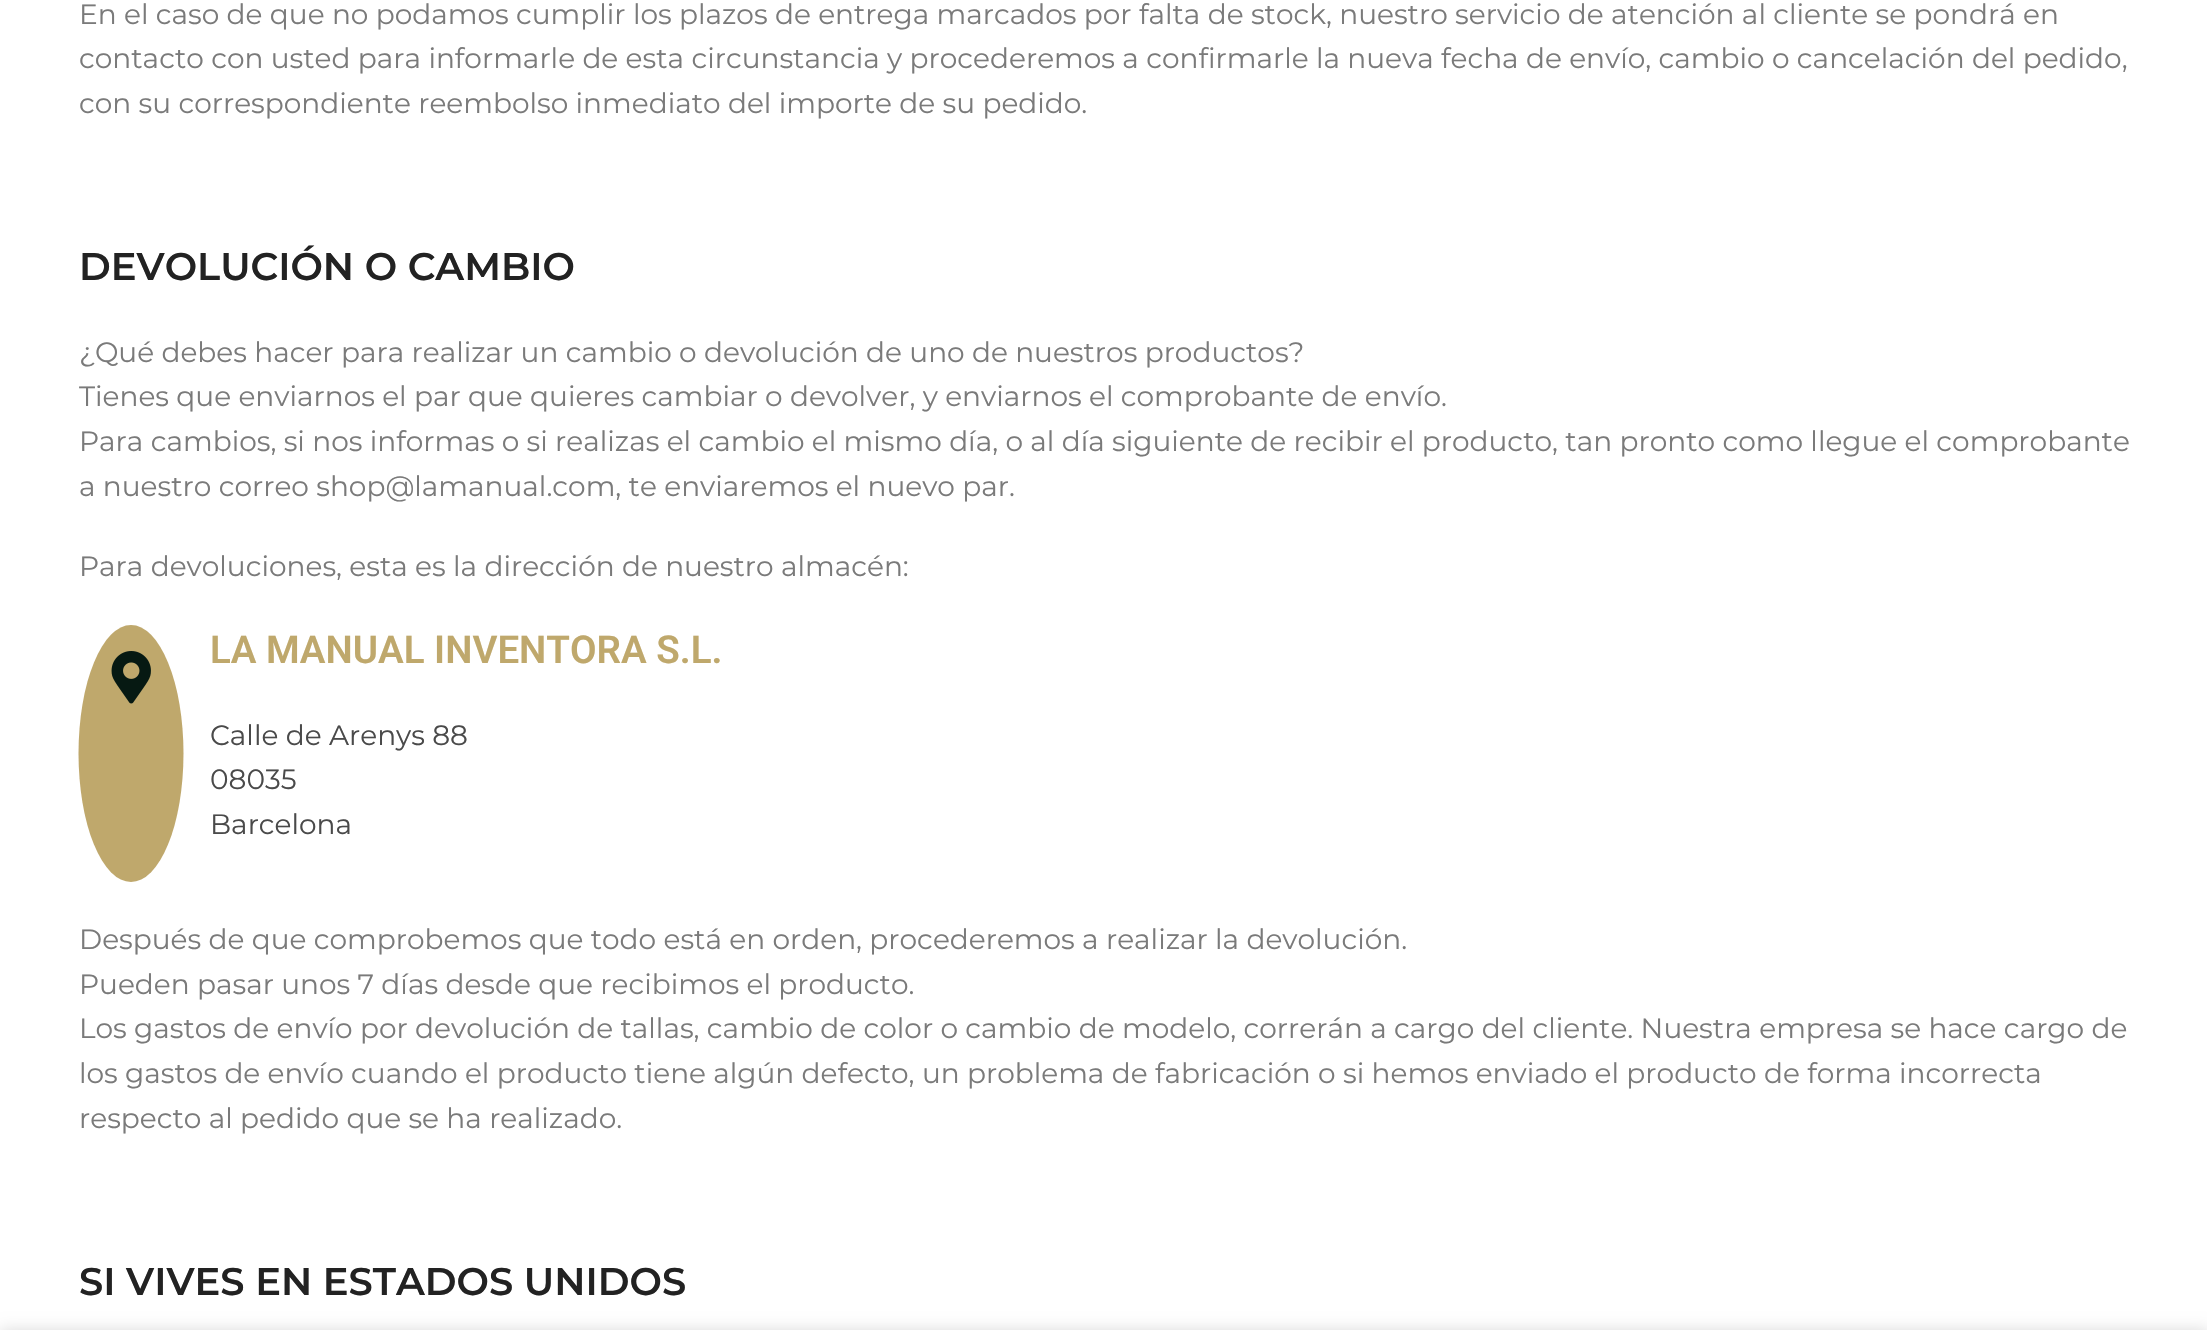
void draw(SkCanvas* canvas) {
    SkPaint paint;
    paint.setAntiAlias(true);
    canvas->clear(0xFFFFFFFF);
    SkFont font1(fontMgr->matchFamilyStyle("Montserrat", SkFontStyle::Normal()), 28);
    font1.setSubpixel(true);
    paint.setColor(0xFF7A7A7A);
    canvas->drawString("En el caso de que no podamos cumplir los plazos de entrega marcados por falta de stock, nuestro servicio de atención al cliente se pondrá en", 79, 24, font1, paint);
    canvas->drawString("contacto con usted para informarle de esta circunstancia y procederemos a confirmarle la nueva fecha de envío, cambio o cancelación del pedido,", 79, 68, font1, paint);
    canvas->drawString("con su correspondiente reembolso inmediato del importe de su pedido.", 79, 113, font1, paint);
    SkFont font2(fontMgr->matchFamilyStyle("Montserrat", SkFontStyle(600, SkFontStyle::kNormal_Width, SkFontStyle::kUpright_Slant)), 38.5f);
    font2.setSubpixel(true);
    paint.setColor(0xFF222222);
    canvas->drawString("DEVOLUCIÓN O CAMBIO", 79, 280, font2, paint);
    paint.setColor(0xFF7A7A7A);
    canvas->drawString("¿Qué debes hacer para realizar un cambio o devolución de uno de nuestros productos?", 79, 362, font1, paint);
    canvas->drawString("Tienes que enviarnos el par que quieres cambiar o devolver, y enviarnos el comprobante de envío.", 79, 406, font1, paint);
    canvas->drawString("Para cambios, si nos informas o si realizas el cambio el mismo día, o al día siguiente de recibir el producto, tan pronto como llegue el comprobante", 79, 451, font1, paint);
    canvas->drawString("a nuestro correo shop@lamanual.com, te enviaremos el nuevo par.", 79, 496, font1, paint);
    canvas->drawString("Para devoluciones, esta es la dirección de nuestro almacén:", 79, 576, font1, paint);
    paint.setColor(0xFFBFA86C);
    canvas->drawOval(SkRect::MakeXYWH(78.5f, 625, 105, 257), paint);
    canvas->drawImageRect(SkImages::DeferredFromEncodedData(SkData::MakeFromFileName("img1.png")), SkRect::MakeXYWH(111, 651, 40, 53), SkSamplingOptions());
    SkFont font3(fontMgr->matchFamilyStyle("Roboto", SkFontStyle(600, SkFontStyle::kNormal_Width, SkFontStyle::kUpright_Slant)), 38.5f);
    font3.setSubpixel(true);
    canvas->drawString("LA MANUAL INVENTORA S.L.", 210, 663, font3, paint);
    paint.setColor(0xFF4A4A4A);
    canvas->drawString("Calle de Arenys 88", 210, 745, font1, paint);
    canvas->drawString("08035", 210, 789, font1, paint);
    canvas->drawString("Barcelona", 210, 834, font1, paint);
    paint.setColor(0xFF7A7A7A);
    canvas->drawString("Después de que comprobemos que todo está en orden, procederemos a realizar la devolución.", 79, 949, font1, paint);
    canvas->drawString("Pueden pasar unos 7 días desde que recibimos el producto.", 79, 994, font1, paint);
    canvas->drawString("Los gastos de envío por devolución de tallas, cambio de color o cambio de modelo, correrán a cargo del cliente. Nuestra empresa se hace cargo de", 79, 1038, font1, paint);
    canvas->drawString("los gastos de envío cuando el producto tiene algún defecto, un problema de fabricación o si hemos enviado el producto de forma incorrecta", 79, 1083, font1, paint);
    canvas->drawString("respecto al pedido que se ha realizado.", 79, 1128, font1, paint);
    paint.setColor(0xFF222222);
    canvas->drawString("SI VIVES EN ESTADOS UNIDOS", 79, 1295, font2, paint);
    paint.setColor(0x24000000);
    paint.setMaskFilter(SkMaskFilter::MakeBlur(kNormal_SkBlurStyle, 8));
    canvas->drawRect(SkRect::MakeXYWH(0, 1330, 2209, 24), paint);
    paint.setMaskFilter(nullptr);
}
